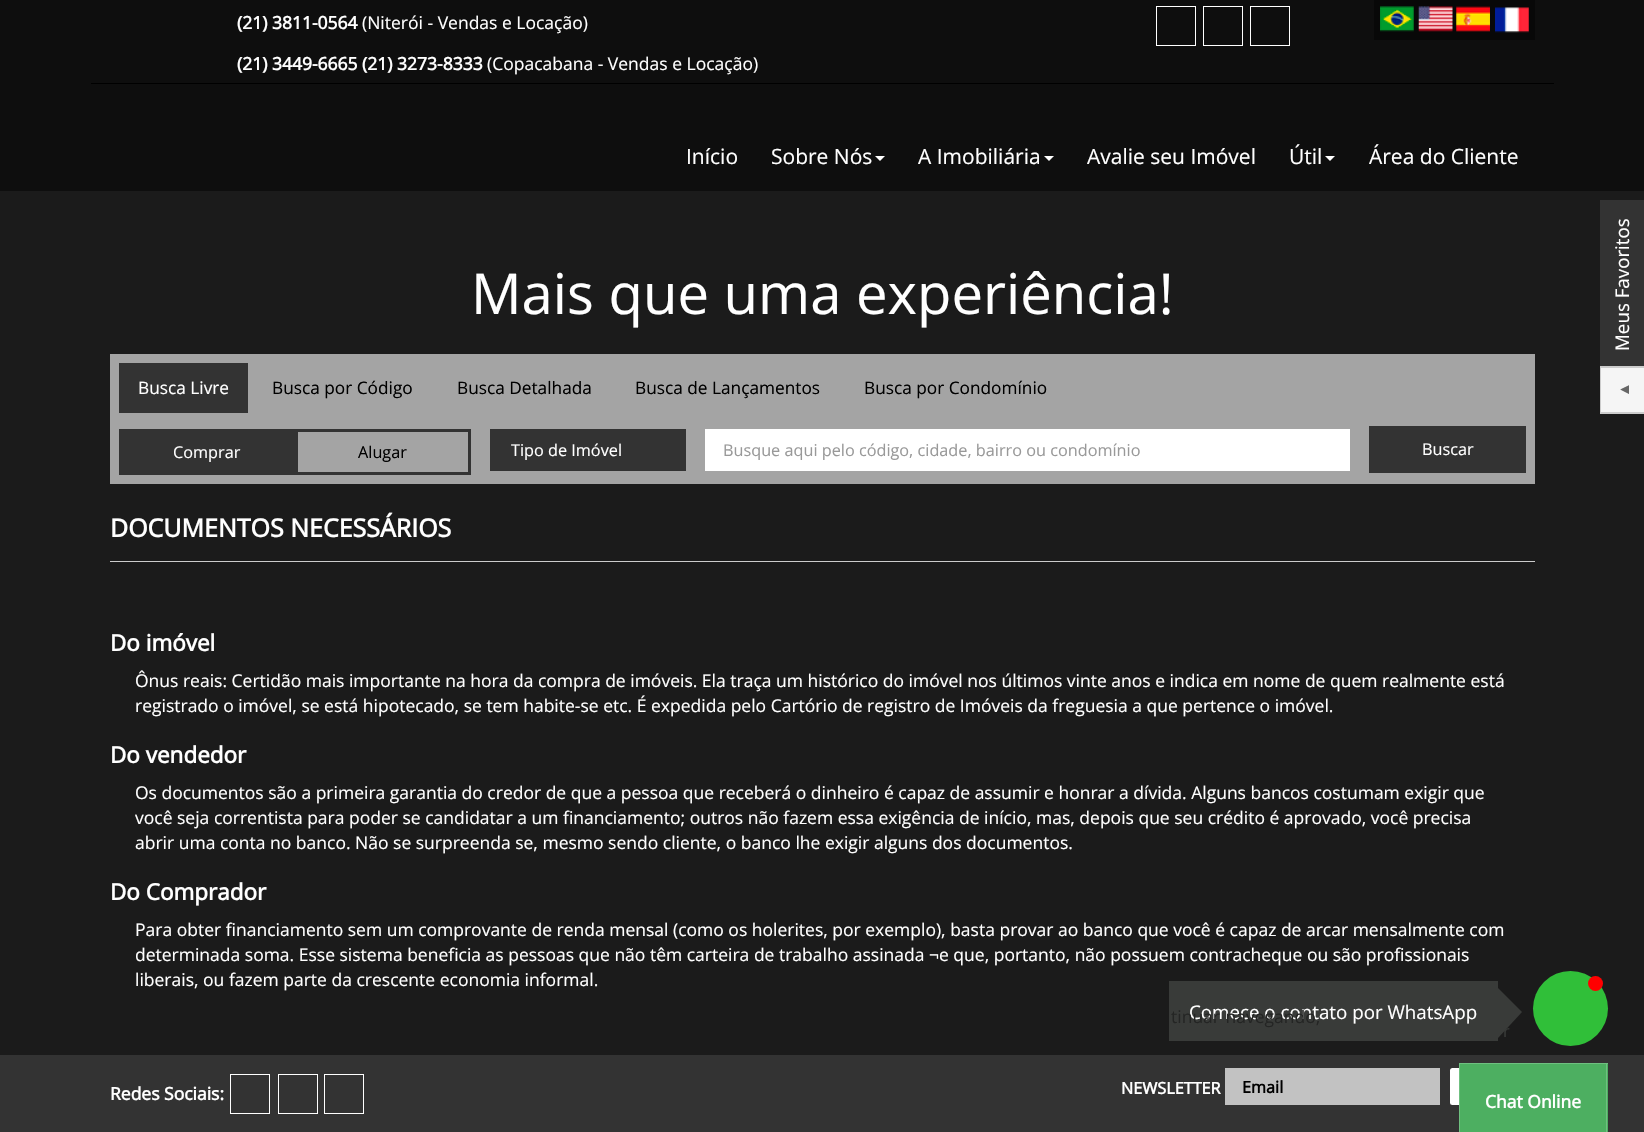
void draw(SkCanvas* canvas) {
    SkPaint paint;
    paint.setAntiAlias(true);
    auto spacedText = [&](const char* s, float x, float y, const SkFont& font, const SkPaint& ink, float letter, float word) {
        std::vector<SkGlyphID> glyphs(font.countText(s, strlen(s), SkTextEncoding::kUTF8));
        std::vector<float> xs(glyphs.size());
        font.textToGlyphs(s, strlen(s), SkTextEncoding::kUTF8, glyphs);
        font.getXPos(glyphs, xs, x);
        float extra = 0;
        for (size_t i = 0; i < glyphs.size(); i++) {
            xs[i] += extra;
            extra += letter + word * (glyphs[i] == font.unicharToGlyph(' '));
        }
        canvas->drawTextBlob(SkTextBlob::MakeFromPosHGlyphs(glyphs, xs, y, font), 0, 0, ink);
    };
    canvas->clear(0xFF1B1B1B);
    paint.setColor(0xFF0E0E0E);
    canvas->drawRect(SkRect::MakeXYWH(0, 0, 1644, 191), paint);
    paint.setColor(0xFF000000);
    canvas->drawRect(SkRect::MakeXYWH(91, 83, 1463, 1), paint);
    SkFont font1(fontMgr->matchFamilyStyle("Open Sans", SkFontStyle::Bold()), 17.5f);
    font1.setSubpixel(true);
    paint.setColor(0xFFFFFFFF);
    canvas->drawString("(21) 3811-0564", 237, 29, font1, paint);
    SkFont font2(fontMgr->matchFamilyStyle("Open Sans", SkFontStyle::Normal()), 17.5f);
    font2.setSubpixel(true);
    canvas->drawString("(Niterói - Vendas e Locação)", 362, 29, font2, paint);
    canvas->drawString("(21) 3449-6665 (21) 3273-8333", 237, 70, font1, paint);
    canvas->drawString("(Copacabana - Vendas e Locação)", 487, 70, font2, paint);
    paint.setStyle(SkPaint::kStroke_Style);
    paint.setStrokeWidth(1);
    canvas->drawRect(SkRect::MakeXYWH(1156.5f, 6.5f, 39, 39), paint);
    canvas->drawRect(SkRect::MakeXYWH(1203.5f, 6.5f, 39, 39), paint);
    canvas->drawRect(SkRect::MakeXYWH(1250.5f, 6.5f, 39, 39), paint);
    paint.setStyle(SkPaint::kFill_Style);
    paint.setColor(0xFF080808);
    canvas->drawRect(SkRect::MakeXYWH(1374, 0, 161, 40), paint);
    canvas->drawImageRect(SkImages::DeferredFromEncodedData(SkData::MakeFromFileName("img1.png")), SkRect::MakeXYWH(1380, 6, 34, 26), SkSamplingOptions());
    canvas->drawImageRect(SkImages::DeferredFromEncodedData(SkData::MakeFromFileName("img2.png")), SkRect::MakeXYWH(1418, 6, 35, 26), SkSamplingOptions());
    canvas->drawImageRect(SkImages::DeferredFromEncodedData(SkData::MakeFromFileName("img3.png")), SkRect::MakeXYWH(1456, 6, 34, 26), SkSamplingOptions());
    canvas->drawImageRect(SkImages::DeferredFromEncodedData(SkData::MakeFromFileName("img4.png")), SkRect::MakeXYWH(1495, 7, 34, 26), SkSamplingOptions());
    SkFont font3(fontMgr->matchFamilyStyle("Open Sans", SkFontStyle::Normal()), 21);
    font3.setSubpixel(true);
    paint.setColor(0xFFFFFFFF);
    canvas->drawString("Início", 686, 164, font3, paint);
    canvas->drawString("Sobre Nós", 771, 164, font3, paint);
    canvas->drawPath(SkPathBuilder().moveTo(875, 156).lineTo(885, 156).lineTo(880, 161).close().detach(), paint);
    canvas->drawString("A Imobiliária", 918, 164, font3, paint);
    canvas->drawPath(SkPathBuilder().moveTo(1044, 156).lineTo(1054, 156).lineTo(1049, 161).close().detach(), paint);
    canvas->drawString("Avalie seu Imóvel", 1087, 164, font3, paint);
    canvas->drawString("Útil", 1289, 164, font3, paint);
    canvas->drawPath(SkPathBuilder().moveTo(1325, 156).lineTo(1335, 156).lineTo(1330, 161).close().detach(), paint);
    canvas->drawString("Área do Cliente", 1369, 164, font3, paint);
    paint.setColor(0xFF333333);
    canvas->drawRect(SkRect::MakeXYWH(0, 1055, 1644, 77), paint);
    paint.setColor(0xFFFFFFFF);
    canvas->drawRoundRect(SkRect::MakeXYWH(1450, 1068, 85, 37), 2.5f, 2.5f, paint);
    paint.setColor(0xFF4DAF61);
    canvas->drawRect(SkRect::MakeXYWH(1460, 1064, 148, 68), paint);
    paint.setColor(0xFF6FC080);
    canvas->drawRect(SkRect::MakeXYWH(1459, 1063, 149, 1), paint);
    canvas->drawRect(SkRect::MakeXYWH(1606, 1063, 1, 69), paint);
    canvas->drawRect(SkRect::MakeXYWH(1459, 1063, 1, 69), paint);
    paint.setColor(0xFFFFFFFF);
    canvas->drawString("Chat Online", 1485, 1108, font1, paint);
    paint.setColor(0xFF333333);
    canvas->drawRect(SkRect::MakeXYWH(1600, 200, 44, 166), paint);
    SkFont font4(fontMgr->matchFamilyStyle("Open Sans", SkFontStyle::Normal()), 18.75f);
    font4.setSubpixel(true);
    paint.setColor(0xFFFFFFFF);
    canvas->save();
    canvas->rotate(-90, 1629, 351);
    canvas->drawString("Meus Favoritos", 1629, 351, font4, paint);
    canvas->restore();
    paint.setColor(0xFFF5F5F5);
    canvas->drawRect(SkRect::MakeXYWH(1601, 368, 43, 44), paint);
    paint.setColor(0xFFCCCCCC);
    canvas->drawRect(SkRect::MakeXYWH(1600, 366, 1, 48), paint);
    canvas->drawRect(SkRect::MakeXYWH(1600, 366, 44, 2), paint);
    canvas->drawRect(SkRect::MakeXYWH(1600, 412, 44, 2), paint);
    SkFont font5(fontMgr->matchFamilyStyle("Liberation Sans", SkFontStyle::Normal()), 15);
    font5.setSubpixel(true);
    paint.setColor(0xFF666666);
    canvas->save();
    canvas->rotate(-90, 1629, 397);
    canvas->drawString("▲", 1629, 397, font5, paint);
    canvas->restore();
    paint.setColor(0xFF30BF39);
    canvas->drawCircle(1570.5f, 1008.5f, 37.5f, paint);
    paint.setColor(0xFFFF0000);
    canvas->drawCircle(1595.5f, 983.5f, 7.5f, paint);
    paint.setColor(0xFF393B39);
    canvas->drawRect(SkRect::MakeXYWH(1169, 981, 329, 60), paint);
    paint.setColor(0xFFFFFFFF);
    canvas->drawString("Comece o contato por WhatsApp", 1189, 1019, font4, paint);
    paint.setColor(0xFF393B39);
    canvas->drawPath(SkPathBuilder().moveTo(1498, 1038).lineTo(1498, 988).lineTo(1522, 1012).close().detach(), paint);
    paint.setColor(0xFFFFFFFF);
    canvas->drawString("Redes Sociais:", 110, 1100, font1, paint);
    paint.setStyle(SkPaint::kStroke_Style);
    canvas->drawRect(SkRect::MakeXYWH(230.5f, 1074.5f, 39, 39), paint);
    canvas->drawRect(SkRect::MakeXYWH(278.5f, 1074.5f, 39, 39), paint);
    canvas->drawRect(SkRect::MakeXYWH(324.5f, 1074.5f, 39, 39), paint);
    SkFont font6(fontMgr->matchFamilyStyle("Open Sans", SkFontStyle::Bold()), 16.25f);
    font6.setSubpixel(true);
    paint.setStyle(SkPaint::kFill_Style);
    canvas->drawString("NEWSLETTER", 1121, 1094, font6, paint);
    paint.setColor(0xFFC2C2C2);
    canvas->drawRect(SkRect::MakeXYWH(1225, 1068, 215, 37), paint);
    paint.setColor(0xFF000000);
    canvas->drawString("Email", 1242, 1093, font6, paint);
    SkFont font7(fontMgr->matchFamilyStyle("Open Sans", SkFontStyle::Normal()), 56.25f);
    font7.setSubpixel(true);
    paint.setColor(0xFFFFFFFF);
    canvas->drawString("Mais que uma experiência!", 471, 314, font7, paint);
    paint.setColor(0xFFA4A4A4);
    canvas->drawRect(SkRect::MakeXYWH(110, 354, 1425, 130), paint);
    paint.setColor(0xFF333333);
    canvas->drawRect(SkRect::MakeXYWH(119, 363, 129, 50), paint);
    SkFont font8(fontMgr->matchFamilyStyle("Open Sans", SkFontStyle::Normal()), 17.25f);
    font8.setSubpixel(true);
    paint.setColor(0xFFFFFFFF);
    canvas->drawString("Busca Livre", 138, 394, font8, paint);
    paint.setColor(0xFF000000);
    canvas->drawString("Busca por Código", 272, 394, font8, paint);
    canvas->drawString("Busca Detalhada", 457, 394, font8, paint);
    canvas->drawString("Busca de Lançamentos", 635, 394, font8, paint);
    canvas->drawString("Busca por Condomínio", 864, 394, font8, paint);
    paint.setColor(0xFF333333);
    canvas->drawRect(SkRect::MakeXYWH(119, 429, 176, 46), paint);
    SkFont font9(fontMgr->matchFamilyStyle("Open Sans", SkFontStyle::Normal()), 16.25f);
    font9.setSubpixel(true);
    paint.setColor(0xFFFFFFFF);
    canvas->drawString("Comprar", 173, 458, font9, paint);
    paint.setStyle(SkPaint::kStroke_Style);
    paint.setStrokeWidth(3);
    paint.setColor(0xFF333333);
    canvas->drawRect(SkRect::MakeXYWH(296.5f, 430.5f, 173, 43), paint);
    paint.setStyle(SkPaint::kFill_Style);
    paint.setColor(0xFF000000);
    canvas->drawString("Alugar", 358, 458, font9, paint);
    paint.setColor(0xFF333333);
    canvas->drawRect(SkRect::MakeXYWH(490, 429, 196, 42), paint);
    paint.setColor(0xFFFFFFFF);
    canvas->drawString("Tipo de Imóvel", 511, 456, font9, paint);
    canvas->drawRect(SkRect::MakeXYWH(705, 429, 645, 42), paint);
    paint.setColor(0xFF999999);
    canvas->drawString("Busque aqui pelo código, cidade, bairro ou condomínio", 723, 456, font9, paint);
    paint.setColor(0xFF333333);
    canvas->drawRect(SkRect::MakeXYWH(1369, 426, 157, 47), paint);
    paint.setColor(0xFFFFFFFF);
    canvas->drawString("Buscar", 1422, 455, font9, paint);
    SkFont font10(fontMgr->matchFamilyStyle("Open Sans", SkFontStyle::Bold()), 25);
    font10.setSubpixel(true);
    canvas->drawString("DOCUMENTOS NECESSÁRIOS", 110, 537, font10, paint);
    paint.setColor(0xFFCCCCCC);
    canvas->drawRect(SkRect::MakeXYWH(110, 561, 1425, 1), paint);
    SkFont font11(fontMgr->matchFamilyStyle("Open Sans", SkFontStyle::Bold()), 22.5f);
    font11.setSubpixel(true);
    paint.setColor(0xFFFFFFFF);
    canvas->drawString("Do imóvel", 110, 651, font11, paint);
    canvas->drawString("Ônus reais: Certidão mais importante na hora da compra de imóveis. Ela traça um histórico do imóvel nos últimos vinte anos e indica em nome de quem realmente está", 135, 687, font2, paint);
    canvas->drawString("registrado o imóvel, se está hipotecado, se tem habite-se etc. É expedida pelo Cartório de registro de Imóveis da freguesia a que pertence o imóvel.", 135, 712, font2, paint);
    canvas->drawString("Do vendedor", 110, 763, font11, paint);
    canvas->drawString("Os documentos são a primeira garantia do credor de que a pessoa que receberá o dinheiro é capaz de assumir e honrar a dívida. Alguns bancos costumam exigir que", 135, 799, font2, paint);
    canvas->drawString("você seja correntista para poder se candidatar a um financiamento; outros não fazem essa exigência de início, mas, depois que seu crédito é aprovado, você precisa", 135, 824, font2, paint);
    canvas->drawString("abrir uma conta no banco. Não se surpreenda se, mesmo sendo cliente, o banco lhe exigir alguns dos documentos.", 135, 849, font2, paint);
    canvas->drawString("Do Comprador", 110, 900, font11, paint);
    canvas->drawString("Para obter financiamento sem um comprovante de renda mensal (como os holerites, por exemplo), basta provar ao banco que você é capaz de arcar mensalmente com", 135, 936, font2, paint);
    canvas->drawString("determinada soma. Esse sistema beneficia as pessoas que não têm carteira de trabalho assinada ¬e que, portanto, não possuem contracheque ou são profissionais", 135, 961, font2, paint);
    canvas->drawString("liberais, ou fazem parte da crescente economia informal.", 135, 986, font2, paint);
    paint.setColor(0xFF242524);
    spacedText("tinuar navegando,", 1171, 1023, font2, paint, 0, 1);
    paint.setColor(0xFF383A38);
    canvas->drawString("r", 1503, 1037, font9, paint);
}
